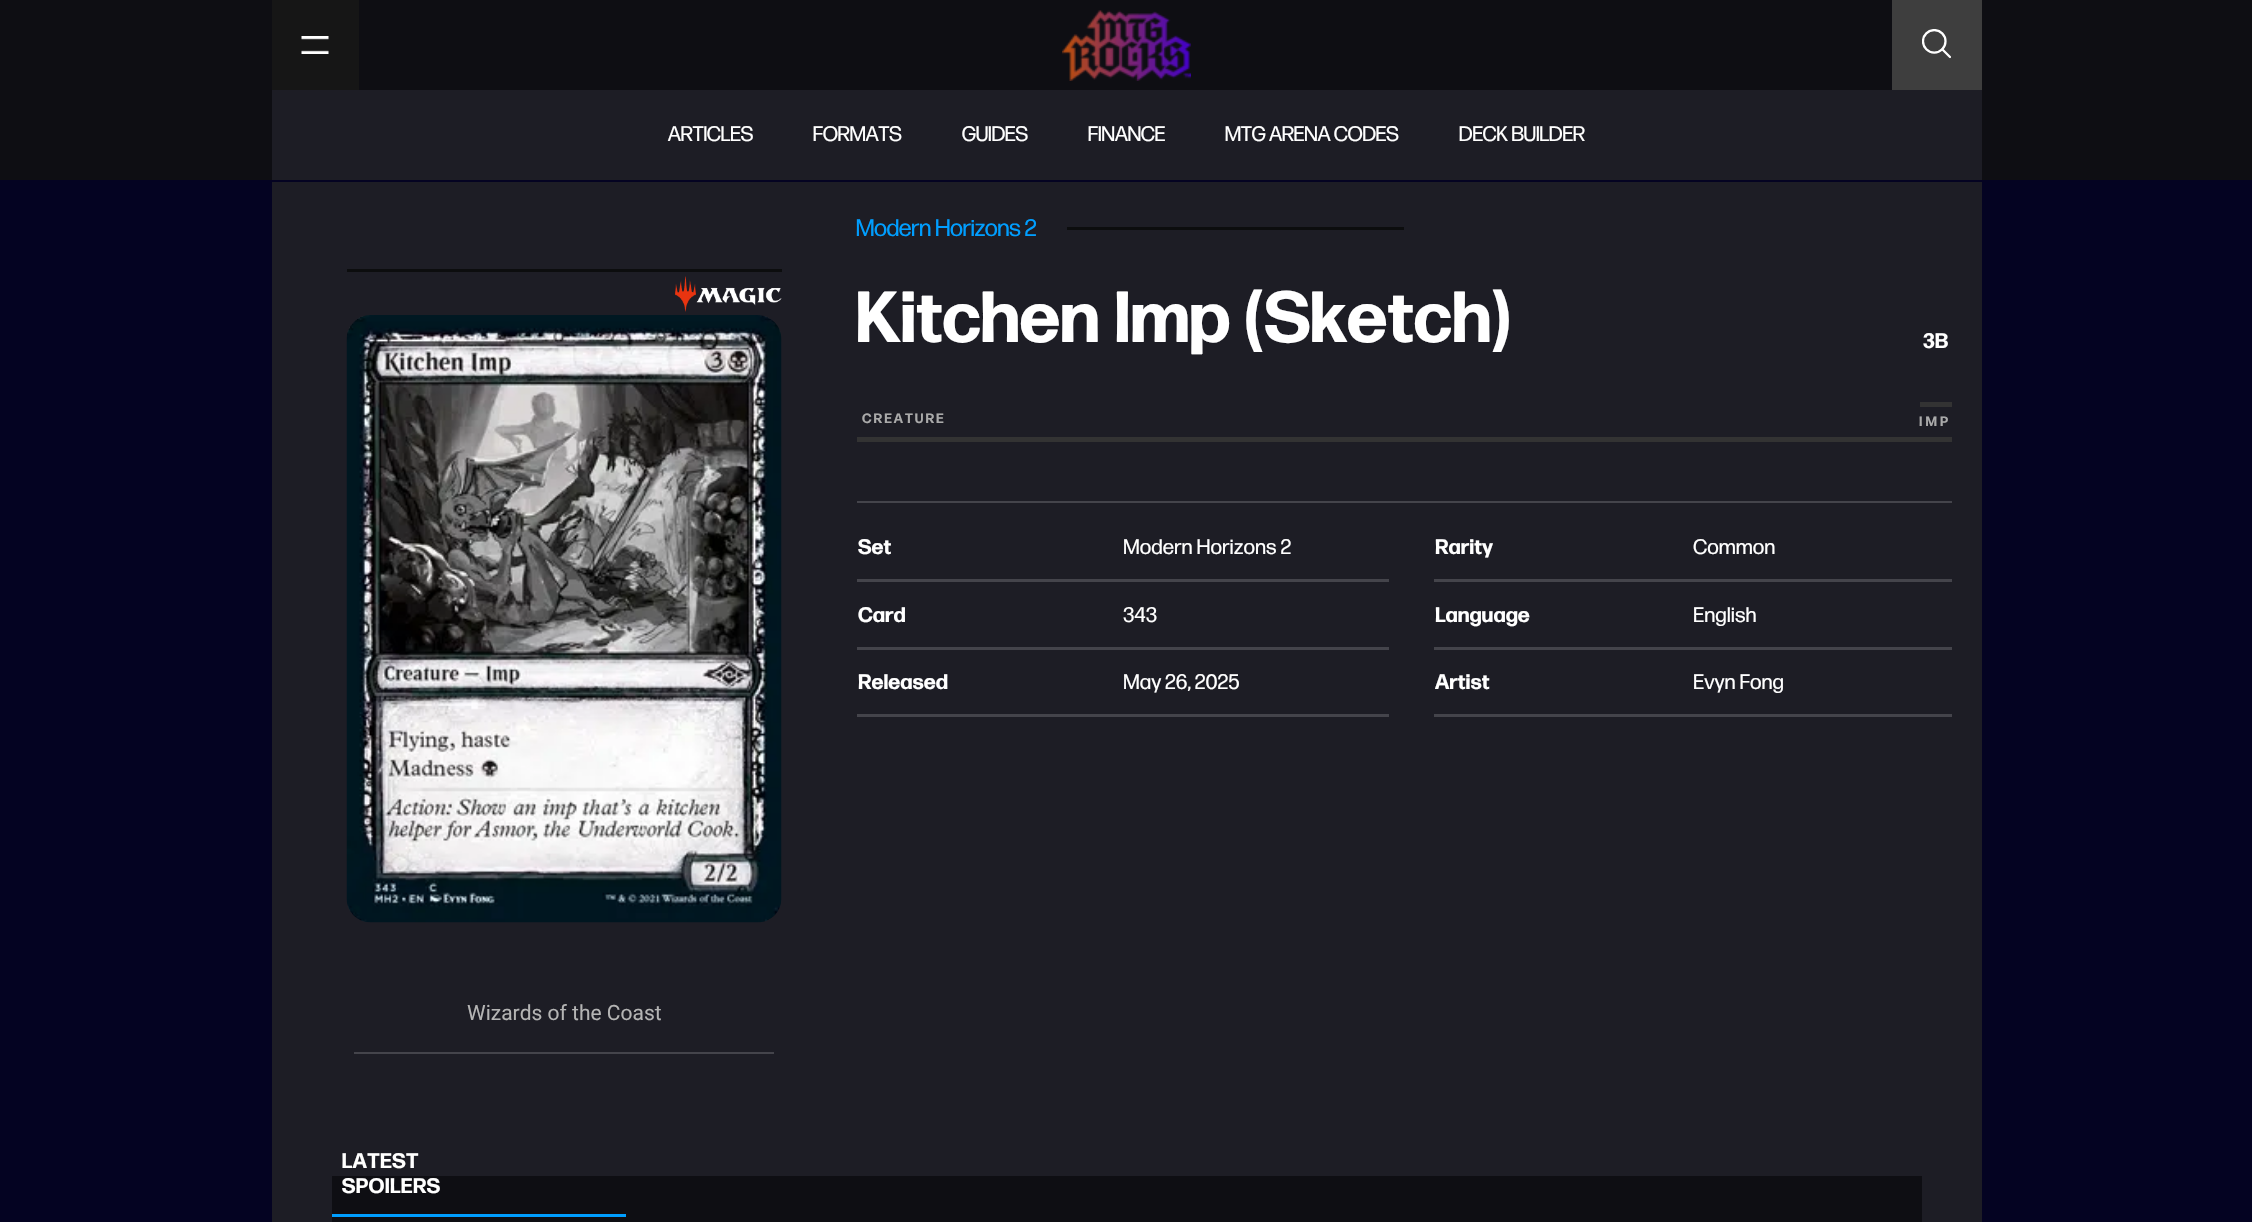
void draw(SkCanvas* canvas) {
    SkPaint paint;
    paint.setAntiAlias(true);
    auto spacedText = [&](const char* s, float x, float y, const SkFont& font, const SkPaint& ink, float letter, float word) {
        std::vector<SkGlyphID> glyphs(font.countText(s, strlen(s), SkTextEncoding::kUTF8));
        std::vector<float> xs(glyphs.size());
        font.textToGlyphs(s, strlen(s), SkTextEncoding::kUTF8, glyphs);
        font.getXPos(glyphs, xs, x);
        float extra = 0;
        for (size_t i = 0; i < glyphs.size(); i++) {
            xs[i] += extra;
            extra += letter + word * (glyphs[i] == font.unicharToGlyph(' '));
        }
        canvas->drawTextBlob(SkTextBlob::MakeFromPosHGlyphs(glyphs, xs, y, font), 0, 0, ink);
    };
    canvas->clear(0xFF040322);
    paint.setColor(0xFF0E0E13);
    canvas->drawRect(SkRect::MakeXYWH(0, 0, 2252, 180), paint);
    paint.setColor(0xFF161616);
    canvas->drawRect(SkRect::MakeXYWH(272, 0, 87, 90), paint);
    canvas->drawImageRect(SkImages::DeferredFromEncodedData(SkData::MakeFromFileName("img1.png")), SkRect::MakeXYWH(301, 36, 28, 18), SkSamplingOptions());
    canvas->drawImageRect(SkImages::DeferredFromEncodedData(SkData::MakeFromFileName("img2.png")), SkRect::MakeXYWH(1062, 10, 129, 71), SkSamplingOptions());
    paint.setColor(0xFF3E3E3E);
    canvas->drawRect(SkRect::MakeXYWH(1892, 0, 90, 90), paint);
    canvas->drawImageRect(SkImages::DeferredFromEncodedData(SkData::MakeFromFileName("img3.png")), SkRect::MakeXYWH(1922, 29, 29, 30), SkSamplingOptions());
    paint.setColor(0xFF1D1D25);
    canvas->drawRect(SkRect::MakeXYWH(272, 90, 1710, 90), paint);
    SkFont font1(fontMgr->matchFamilyStyle("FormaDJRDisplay", SkFontStyle::Normal()), 21);
    font1.setSubpixel(true);
    paint.setColor(0xFFFFFFFF);
    canvas->drawString("ARTICLES", 668, 141, font1, paint);
    canvas->drawString("FORMATS", 813, 141, font1, paint);
    canvas->drawString("GUIDES", 962, 141, font1, paint);
    canvas->drawString("FINANCE", 1088, 141, font1, paint);
    canvas->drawString("MTG ARENA CODES", 1225, 141, font1, paint);
    canvas->drawString("DECK BUILDER", 1459, 141, font1, paint);
    paint.setColor(0xFF1D1D25);
    canvas->drawRect(SkRect::MakeXYWH(272, 182, 1710, 1040), paint);
    SkFont font2(fontMgr->matchFamilyStyle("FormaDJRDisplay", SkFontStyle::Normal()), 24);
    font2.setSubpixel(true);
    paint.setColor(0xFF009EFF);
    canvas->drawString("Modern Horizons 2", 856, 236, font2, paint);
    paint.setColor(0xFF0C0D0E);
    canvas->drawRect(SkRect::MakeXYWH(1067, 227, 337, 3), paint);
    SkFont font3(fontMgr->matchFamilyStyle("FormaDJRDisplay", SkFontStyle::Bold()), 72);
    font3.setSubpixel(true);
    paint.setColor(0xFFFFFFFF);
    spacedText("Kitchen Imp (Sketch)", 856, 342, font3, paint, 0.75f, 0);
    SkFont font4(fontMgr->matchFamilyStyle("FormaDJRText", SkFontStyle::Bold()), 21);
    font4.setSubpixel(true);
    canvas->drawString("3B", 1923, 348, font4, paint);
    paint.setColor(0xFF333333);
    canvas->drawRect(SkRect::MakeXYWH(857, 437, 1095, 5), paint);
    SkFont font5(fontMgr->matchFamilyStyle("FormaDJRText", SkFontStyle::Bold()), 13.5f);
    font5.setSubpixel(true);
    paint.setColor(0xFFAAAAAA);
    spacedText("CREATURE", 862, 423, font5, paint, 2, 0);
    paint.setColor(0xFF333333);
    canvas->drawRect(SkRect::MakeXYWH(1920, 402, 32, 5), paint);
    paint.setColor(0xFFAAAAAA);
    spacedText("IMP", 1919, 426, font5, paint, 3, 0);
    paint.setColor(0xFF44444B);
    canvas->drawRect(SkRect::MakeXYWH(857, 501, 1095, 2), paint);
    canvas->drawRect(SkRect::MakeXYWH(857, 579, 532, 3), paint);
    paint.setColor(0xFFFFFFFF);
    canvas->drawString("Set", 858, 554, font4, paint);
    SkFont font6(fontMgr->matchFamilyStyle("FormaDJRText", SkFontStyle::Normal()), 21);
    font6.setSubpixel(true);
    canvas->drawString("Modern Horizons 2", 1123, 554, font6, paint);
    paint.setColor(0xFF44444B);
    canvas->drawRect(SkRect::MakeXYWH(857, 647, 532, 3), paint);
    paint.setColor(0xFFFFFFFF);
    canvas->drawString("Card", 858, 622, font4, paint);
    canvas->drawString("343", 1123, 622, font6, paint);
    paint.setColor(0xFF44444B);
    canvas->drawRect(SkRect::MakeXYWH(857, 714, 532, 3), paint);
    paint.setColor(0xFFFFFFFF);
    canvas->drawString("Released", 858, 689, font4, paint);
    canvas->drawString("May 26, 2025", 1123, 689, font6, paint);
    paint.setColor(0xFF44444B);
    canvas->drawRect(SkRect::MakeXYWH(1434, 579, 518, 3), paint);
    paint.setColor(0xFFFFFFFF);
    canvas->drawString("Rarity", 1435, 554, font4, paint);
    canvas->drawString("Common", 1693, 554, font6, paint);
    paint.setColor(0xFF44444B);
    canvas->drawRect(SkRect::MakeXYWH(1434, 647, 518, 3), paint);
    paint.setColor(0xFFFFFFFF);
    canvas->drawString("Language", 1435, 622, font4, paint);
    canvas->drawString("English", 1693, 622, font6, paint);
    paint.setColor(0xFF44444B);
    canvas->drawRect(SkRect::MakeXYWH(1434, 714, 518, 3), paint);
    paint.setColor(0xFFFFFFFF);
    canvas->drawString("Artist", 1435, 689, font4, paint);
    canvas->drawString("Evyn Fong", 1693, 689, font6, paint);
    paint.setColor(0xFF0C0D0E);
    canvas->drawRect(SkRect::MakeXYWH(347, 269, 435, 3), paint);
    canvas->drawImageRect(SkImages::DeferredFromEncodedData(SkData::MakeFromFileName("img4.png")), SkRect::MakeXYWH(675, 276, 107, 36), SkSamplingOptions());
    canvas->drawImageRect(SkImages::DeferredFromEncodedData(SkData::MakeFromFileName("img5.png")), SkRect::MakeXYWH(346, 315, 436, 608), SkSamplingOptions());
    SkFont font7(fontMgr->matchFamilyStyle("Roboto", SkFontStyle::Normal()), 21);
    font7.setSubpixel(true);
    paint.setColor(0xFFB4B4B4);
    canvas->drawString("Wizards of the Coast", 467, 1020, font7, paint);
    paint.setColor(0xFF44444B);
    canvas->drawRect(SkRect::MakeXYWH(354, 1052, 420, 2), paint);
    SkFont font8(fontMgr->matchFamilyStyle("FormaDJRDisplay", SkFontStyle::Bold()), 21);
    font8.setSubpixel(true);
    paint.setColor(0xFFFFFFFF);
    spacedText("LATEST", 342, 1168, font8, paint, 0.75f, 0);
    paint.setColor(0xFF0E0E13);
    canvas->drawRect(SkRect::MakeXYWH(332, 1176, 1590, 46), paint);
    paint.setColor(0xFFFFFFFF);
    spacedText("SPOILERS", 342, 1193, font8, paint, 0.75f, 0);
    paint.setColor(0xFF009EFF);
    canvas->drawRect(SkRect::MakeXYWH(332, 1214, 294, 3), paint);
}
